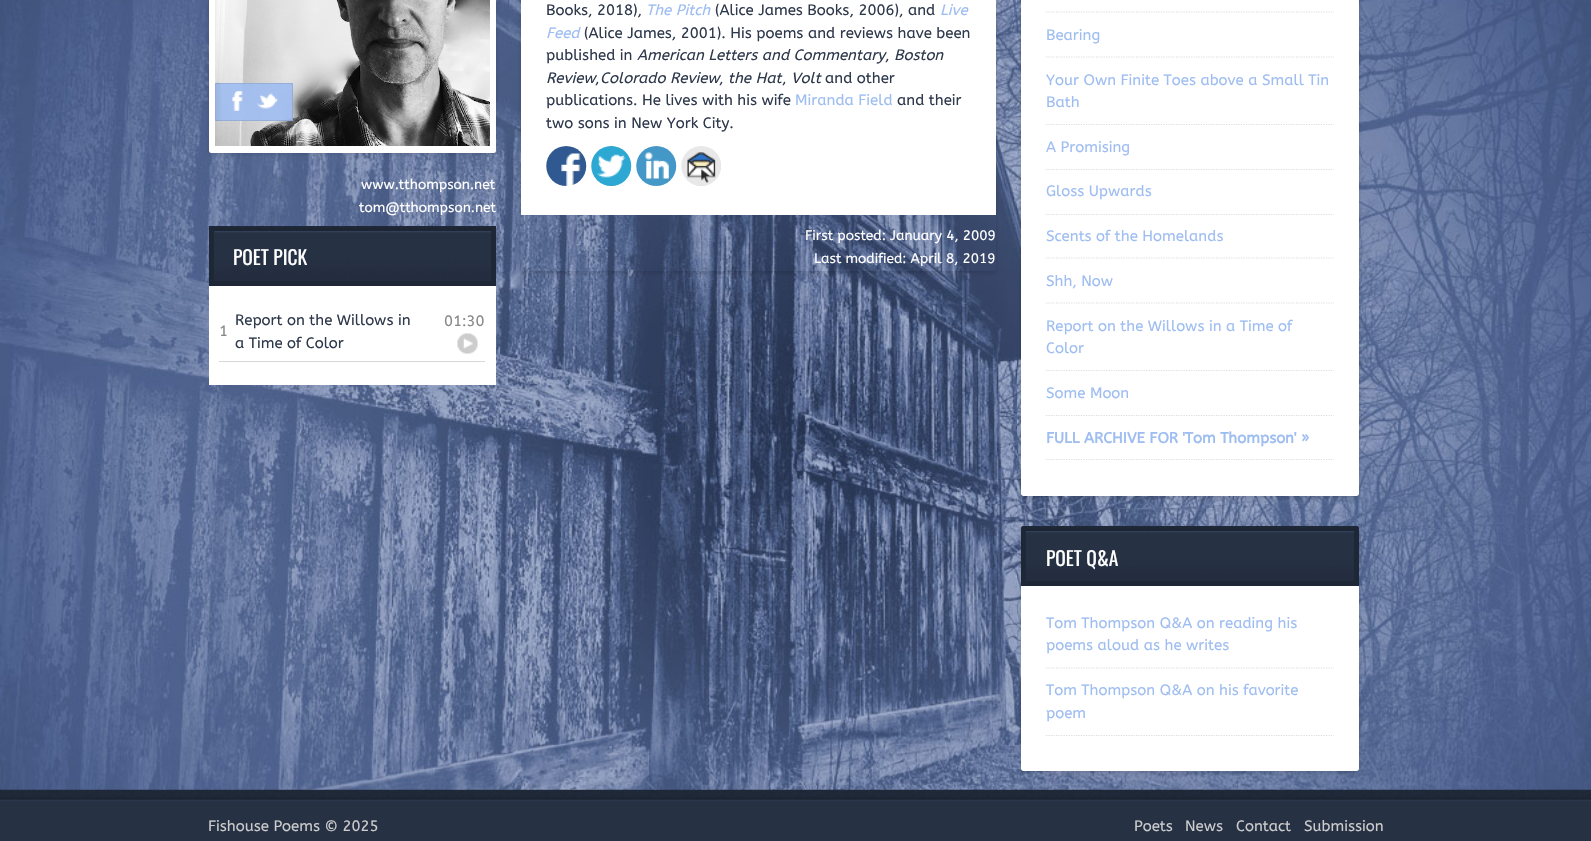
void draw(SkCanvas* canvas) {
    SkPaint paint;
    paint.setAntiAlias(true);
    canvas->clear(0xFFFFFFFF);
    canvas->drawImageRect(SkImages::DeferredFromEncodedData(SkData::MakeFromFileName("img1.png")), SkRect::MakeXYWH(0, 0, 1591, 790), SkSamplingOptions());
    paint.setColor(0x26000000);
    paint.setMaskFilter(SkMaskFilter::MakeBlur(kNormal_SkBlurStyle, 2));
    canvas->drawRoundRect(SkRect::MakeXYWH(209, -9, 287, 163), 2.5f, 2.5f, paint);
    paint.setMaskFilter(nullptr);
    paint.setColor(0xFFFFFFFF);
    canvas->drawRoundRect(SkRect::MakeXYWH(209, -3, 287, 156), 2.5f, 2.5f, paint);
    canvas->drawImageRect(SkImages::DeferredFromEncodedData(SkData::MakeFromFileName("img2.png")), SkRect::MakeXYWH(215, 0, 275, 146), SkSamplingOptions());
    paint.setColor(0xE69EBDF1);
    canvas->drawRect(SkRect::MakeXYWH(215, 83, 78, 38), paint);
    canvas->drawImageRect(SkImages::DeferredFromEncodedData(SkData::MakeFromFileName("img3.png")), SkRect::MakeXYWH(216, 82, 5, 39), SkSamplingOptions());
    paint.setStyle(SkPaint::kStroke_Style);
    paint.setStrokeWidth(1);
    paint.setColor(0x17000000);
    canvas->drawRect(SkRect::MakeXYWH(215.5f, 83.5f, 77, 37), paint);
    canvas->drawImageRect(SkImages::DeferredFromEncodedData(SkData::MakeFromFileName("img4.png")), SkRect::MakeXYWH(232, 91, 11, 20), SkSamplingOptions());
    canvas->drawImageRect(SkImages::DeferredFromEncodedData(SkData::MakeFromFileName("img5.png")), SkRect::MakeXYWH(257, 93, 21, 16), SkSamplingOptions());
    SkFont font1(fontMgr->matchFamilyStyle("ABeeZee", SkFontStyle::Normal()), 13.75f);
    font1.setSubpixel(true);
    paint.setStyle(SkPaint::kFill_Style);
    paint.setColor(0xFFFFFFFF);
    canvas->drawString("www.tthompson.net", 361, 189, font1, paint);
    canvas->drawString("tom@tthompson.net", 359, 212, font1, paint);
    canvas->drawImageRect(SkImages::DeferredFromEncodedData(SkData::MakeFromFileName("img6.png")), SkRect::MakeXYWH(208, 226, 289, 60), SkSamplingOptions());
    paint.setColor(0xFF1E2736);
    canvas->drawRect(SkRect::MakeXYWH(491, 226, 5, 60), paint);
    canvas->drawRect(SkRect::MakeXYWH(209, 281, 287, 5), paint);
    canvas->drawRect(SkRect::MakeXYWH(209, 226, 5, 60), paint);
    SkFont font2(fontMgr->matchFamilyStyle("Oswald", SkFontStyle::Normal()), 19.5f);
    font2.setSubpixel(true);
    paint.setColor(0xFFFFFFFF);
    canvas->drawString("POET PICK", 233, 265, font2, paint);
    canvas->drawRect(SkRect::MakeXYWH(209, 286, 287, 99), paint);
    SkFont font3(fontMgr->matchFamilyStyle("ABeeZee", SkFontStyle::Normal()), 15);
    font3.setSubpixel(true);
    paint.setColor(0xFF2E394C);
    canvas->drawString("Report on the Willows in", 235, 325, font3, paint);
    canvas->drawString("a Time of Color", 235, 348, font3, paint);
    paint.setColor(0xFFD7D7D7);
    canvas->drawRect(SkRect::MakeXYWH(219, 361, 266, 1), paint);
    paint.setColor(0xFF888888);
    canvas->drawString("01:30", 444, 326, font3, paint);
    canvas->drawImageRect(SkImages::DeferredFromEncodedData(SkData::MakeFromFileName("img7.png")), SkRect::MakeXYWH(457, 333, 21, 21), SkSamplingOptions());
    canvas->drawString("1", 219, 336, font3, paint);
    canvas->save();
    canvas->clipPath(SkPathBuilder(SkPathFillType::kEvenOdd).moveTo(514, 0).lineTo(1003, 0).lineTo(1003, 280).lineTo(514, 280).close().moveTo(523.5f, -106).lineTo(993.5f, -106).cubicTo(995, -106, 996, -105, 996, -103.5f).lineTo(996, 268.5f).cubicTo(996, 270, 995, 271, 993.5f, 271).lineTo(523.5f, 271).cubicTo(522, 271, 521, 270, 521, 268.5f).lineTo(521, -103.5f).cubicTo(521, -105, 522, -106, 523.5f, -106).close().detach(), true);
    paint.setColor(0x26000000);
    paint.setMaskFilter(SkMaskFilter::MakeBlur(kNormal_SkBlurStyle, 2));
    canvas->drawRoundRect(SkRect::MakeXYWH(521, -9, 475, 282), 2.5f, 2.5f, paint);
    paint.setMaskFilter(nullptr);
    canvas->restore();
    paint.setColor(0xFFFFFFFF);
    canvas->drawRect(SkRect::MakeXYWH(521, 0, 475, 215), paint);
    paint.setColor(0xFF2E394C);
    canvas->drawString("Books, 2018),", 546, 15, font3, paint);
    SkFont font4(fontMgr->matchFamilyStyle("ABeeZee", SkFontStyle::Italic()), 15);
    font4.setSubpixel(true);
    paint.setColor(0xFF9EBDF1);
    canvas->drawString("The Pitch", 646, 15, font4, paint);
    paint.setColor(0xFF2E394C);
    canvas->drawString("(Alice James Books, 2006), and", 715, 15, font3, paint);
    paint.setColor(0xFF9EBDF1);
    canvas->drawString("Live", 940, 15, font4, paint);
    canvas->drawString("Feed", 546, 38, font4, paint);
    paint.setColor(0xFF2E394C);
    canvas->drawString("(Alice James, 2001). His poems and reviews have been", 584, 38, font3, paint);
    canvas->drawString("published in", 546, 60, font3, paint);
    canvas->drawString("American Letters and Commentary", 637, 60, font4, paint);
    canvas->drawString("Boston", 894, 60, font4, paint);
    canvas->drawString(",", 885, 60, font3, paint);
    canvas->drawString("Review Colorado Review", 546, 83, font4, paint);
    canvas->drawString("the Hat", 728, 83, font4, paint);
    canvas->drawString("Volt", 791, 83, font4, paint);
    canvas->drawString("and other", 825, 83, font3, paint);
    canvas->drawString(",", 595, 83, font3, paint);
    canvas->drawString(",", 719, 83, font3, paint);
    canvas->drawString(",", 782, 83, font3, paint);
    canvas->drawString("publications. He lives with his wife", 546, 105, font3, paint);
    paint.setColor(0xFF9EBDF1);
    canvas->drawString("Miranda Field", 795, 105, font3, paint);
    paint.setColor(0xFF2E394C);
    canvas->drawString("and their", 897, 105, font3, paint);
    canvas->drawString("two sons in New York City.", 546, 128, font3, paint);
    canvas->drawImageRect(SkImages::DeferredFromEncodedData(SkData::MakeFromFileName("img8.png")), SkRect::MakeXYWH(546, 146, 41, 40), SkSamplingOptions());
    canvas->drawImageRect(SkImages::DeferredFromEncodedData(SkData::MakeFromFileName("img9.png")), SkRect::MakeXYWH(591, 146, 41, 40), SkSamplingOptions());
    canvas->drawImageRect(SkImages::DeferredFromEncodedData(SkData::MakeFromFileName("img10.png")), SkRect::MakeXYWH(636, 146, 41, 40), SkSamplingOptions());
    canvas->drawImageRect(SkImages::DeferredFromEncodedData(SkData::MakeFromFileName("img11.png")), SkRect::MakeXYWH(681, 146, 40, 40), SkSamplingOptions());
    paint.setColor(0xFFFFFFFF);
    canvas->drawString("First posted: January 4, 2009", 805, 240, font1, paint);
    canvas->drawString("Last modified: April 8, 2019", 814, 263, font1, paint);
    paint.setColor(0x26000000);
    paint.setMaskFilter(SkMaskFilter::MakeBlur(kNormal_SkBlurStyle, 2));
    canvas->drawRoundRect(SkRect::MakeXYWH(1021, -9, 338, 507), 2.5f, 2.5f, paint);
    paint.setMaskFilter(nullptr);
    paint.setColor(0xFFFFFFFF);
    canvas->drawPath(SkPathBuilder().moveTo(1021, -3).lineTo(1359, -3).lineTo(1359, 493.5f).cubicTo(1359, 495, 1358, 496, 1356.5f, 496).lineTo(1023.5f, 496).cubicTo(1022, 496, 1021, 495, 1021, 493.5f).close().detach(), paint);
    paint.setStyle(SkPaint::kStroke_Style);
    paint.setStrokeWidth(1.2f);
    paint.setColor(0xFFDDDDDD);
    paint.setPathEffect(SkDashPathEffect::Make({{1.25f, 1.25f}}, 0));
    canvas->drawPath(SkPathBuilder().moveTo(1046, 12).lineTo(1334, 12).detach(), paint);
    paint.setPathEffect(nullptr);
    paint.setPathEffect(SkDashPathEffect::Make({{1.25f, 1.25f}}, 0));
    canvas->drawPath(SkPathBuilder().moveTo(1046, 57).lineTo(1334, 57).detach(), paint);
    paint.setPathEffect(nullptr);
    paint.setStyle(SkPaint::kFill_Style);
    paint.setColor(0xFF9EBDF1);
    canvas->drawString("Bearing", 1046, 40, font3, paint);
    paint.setStyle(SkPaint::kStroke_Style);
    paint.setColor(0xFFDDDDDD);
    paint.setPathEffect(SkDashPathEffect::Make({{1.25f, 1.25f}}, 0));
    canvas->drawPath(SkPathBuilder().moveTo(1046, 124.5f).lineTo(1334, 124.5f).detach(), paint);
    paint.setPathEffect(nullptr);
    paint.setStyle(SkPaint::kFill_Style);
    paint.setColor(0xFF9EBDF1);
    canvas->drawString("Your Own Finite Toes above a Small Tin", 1046, 85, font3, paint);
    canvas->drawString("Bath", 1046, 107, font3, paint);
    paint.setStyle(SkPaint::kStroke_Style);
    paint.setColor(0xFFDDDDDD);
    paint.setPathEffect(SkDashPathEffect::Make({{1.25f, 1.25f}}, 0));
    canvas->drawPath(SkPathBuilder().moveTo(1046, 169.5f).lineTo(1334, 169.5f).detach(), paint);
    paint.setPathEffect(nullptr);
    paint.setStyle(SkPaint::kFill_Style);
    paint.setColor(0xFF9EBDF1);
    canvas->drawString("A Promising", 1046, 152, font3, paint);
    paint.setStyle(SkPaint::kStroke_Style);
    paint.setColor(0xFFDDDDDD);
    paint.setPathEffect(SkDashPathEffect::Make({{1.25f, 1.25f}}, 0));
    canvas->drawPath(SkPathBuilder().moveTo(1046, 214.5f).lineTo(1334, 214.5f).detach(), paint);
    paint.setPathEffect(nullptr);
    paint.setStyle(SkPaint::kFill_Style);
    paint.setColor(0xFF9EBDF1);
    canvas->drawString("Gloss Upwards", 1046, 196, font3, paint);
    paint.setStyle(SkPaint::kStroke_Style);
    paint.setColor(0xFFDDDDDD);
    paint.setPathEffect(SkDashPathEffect::Make({{1.25f, 1.25f}}, 0));
    canvas->drawPath(SkPathBuilder().moveTo(1046, 258).lineTo(1334, 258).detach(), paint);
    paint.setPathEffect(nullptr);
    paint.setStyle(SkPaint::kFill_Style);
    paint.setColor(0xFF9EBDF1);
    canvas->drawString("Scents of the Homelands", 1046, 241, font3, paint);
    paint.setStyle(SkPaint::kStroke_Style);
    paint.setColor(0xFFDDDDDD);
    paint.setPathEffect(SkDashPathEffect::Make({{1.25f, 1.25f}}, 0));
    canvas->drawPath(SkPathBuilder().moveTo(1046, 303).lineTo(1334, 303).detach(), paint);
    paint.setPathEffect(nullptr);
    paint.setStyle(SkPaint::kFill_Style);
    paint.setColor(0xFF9EBDF1);
    canvas->drawString("Shh, Now", 1046, 286, font3, paint);
    paint.setStyle(SkPaint::kStroke_Style);
    paint.setColor(0xFFDDDDDD);
    paint.setPathEffect(SkDashPathEffect::Make({{1.25f, 1.25f}}, 0));
    canvas->drawPath(SkPathBuilder().moveTo(1046, 370.5f).lineTo(1334, 370.5f).detach(), paint);
    paint.setPathEffect(nullptr);
    paint.setStyle(SkPaint::kFill_Style);
    paint.setColor(0xFF9EBDF1);
    canvas->drawString("Report on the Willows in a Time of", 1046, 331, font3, paint);
    canvas->drawString("Color", 1046, 353, font3, paint);
    paint.setStyle(SkPaint::kStroke_Style);
    paint.setColor(0xFFDDDDDD);
    paint.setPathEffect(SkDashPathEffect::Make({{1.25f, 1.25f}}, 0));
    canvas->drawPath(SkPathBuilder().moveTo(1046, 415.5f).lineTo(1334, 415.5f).detach(), paint);
    paint.setPathEffect(nullptr);
    paint.setStyle(SkPaint::kFill_Style);
    paint.setColor(0xFF9EBDF1);
    canvas->drawString("Some Moon", 1046, 398, font3, paint);
    paint.setStyle(SkPaint::kStroke_Style);
    paint.setColor(0xFFDDDDDD);
    paint.setPathEffect(SkDashPathEffect::Make({{1.25f, 1.25f}}, 0));
    canvas->drawPath(SkPathBuilder().moveTo(1046, 459.5f).lineTo(1334, 459.5f).detach(), paint);
    paint.setPathEffect(nullptr);
    SkFont font5(fontMgr->matchFamilyStyle("ABeeZee", SkFontStyle::Bold()), 15);
    font5.setSubpixel(true);
    paint.setStyle(SkPaint::kFill_Style);
    paint.setColor(0xFF9EBDF1);
    canvas->drawString("FULL ARCHIVE FOR 'Tom Thompson' »", 1046, 443, font5, paint);
    paint.setColor(0x26000000);
    paint.setMaskFilter(SkMaskFilter::MakeBlur(kNormal_SkBlurStyle, 2));
    canvas->drawRoundRect(SkRect::MakeXYWH(1021, 528, 338, 245), 2.5f, 2.5f, paint);
    paint.setMaskFilter(nullptr);
    canvas->drawImageRect(SkImages::DeferredFromEncodedData(SkData::MakeFromFileName("img12.png")), SkRect::MakeXYWH(1021, 526, 338, 55), SkSamplingOptions());
    paint.setColor(0xFF1E2736);
    canvas->drawPath(SkPathBuilder().moveTo(1354, 526).lineTo(1356.5f, 526).cubicTo(1358, 526, 1359, 527, 1359, 528.5f).lineTo(1359, 586).lineTo(1354, 586).close().detach(), paint);
    canvas->drawRect(SkRect::MakeXYWH(1021, 581, 338, 5), paint);
    canvas->drawPath(SkPathBuilder().moveTo(1023.5f, 526).lineTo(1026, 526).lineTo(1026, 586).lineTo(1021, 586).lineTo(1021, 528.5f).cubicTo(1021, 527, 1022, 526, 1023.5f, 526).close().detach(), paint);
    paint.setColor(0xFFFFFFFF);
    canvas->drawString("POET Q&A", 1046, 566, font2, paint);
    canvas->drawPath(SkPathBuilder().moveTo(1021, 586).lineTo(1359, 586).lineTo(1359, 768.5f).cubicTo(1359, 770, 1358, 771, 1356.5f, 771).lineTo(1023.5f, 771).cubicTo(1022, 771, 1021, 770, 1021, 768.5f).close().detach(), paint);
    paint.setStyle(SkPaint::kStroke_Style);
    paint.setColor(0xFFDDDDDD);
    paint.setPathEffect(SkDashPathEffect::Make({{1.25f, 1.25f}}, 0));
    canvas->drawPath(SkPathBuilder().moveTo(1046, 668).lineTo(1334, 668).detach(), paint);
    paint.setPathEffect(nullptr);
    paint.setStyle(SkPaint::kFill_Style);
    paint.setColor(0xFF9EBDF1);
    canvas->drawString("Tom Thompson Q&A on reading his", 1046, 628, font3, paint);
    canvas->drawString("poems aloud as he writes", 1046, 650, font3, paint);
    paint.setStyle(SkPaint::kStroke_Style);
    paint.setColor(0xFFDDDDDD);
    paint.setPathEffect(SkDashPathEffect::Make({{1.25f, 1.25f}}, 0));
    canvas->drawPath(SkPathBuilder().moveTo(1046, 735.5f).lineTo(1334, 735.5f).detach(), paint);
    paint.setPathEffect(nullptr);
    paint.setStyle(SkPaint::kFill_Style);
    paint.setColor(0xFF9EBDF1);
    canvas->drawString("Tom Thompson Q&A on his favorite", 1046, 695, font3, paint);
    canvas->drawString("poem", 1046, 718, font3, paint);
    canvas->drawImageRect(SkImages::DeferredFromEncodedData(SkData::MakeFromFileName("img13.png")), SkRect::MakeXYWH(0, 789, 1591, 52), SkSamplingOptions());
    paint.setColor(0xFFCCCCCC);
    canvas->drawString("Fishouse Poems © 2025", 208, 831, font3, paint);
    canvas->drawString("Poets", 1134, 831, font3, paint);
    canvas->drawString("News", 1185, 831, font3, paint);
    canvas->drawString("Contact", 1236, 831, font3, paint);
    canvas->drawString("Submission", 1304, 831, font3, paint);
}
